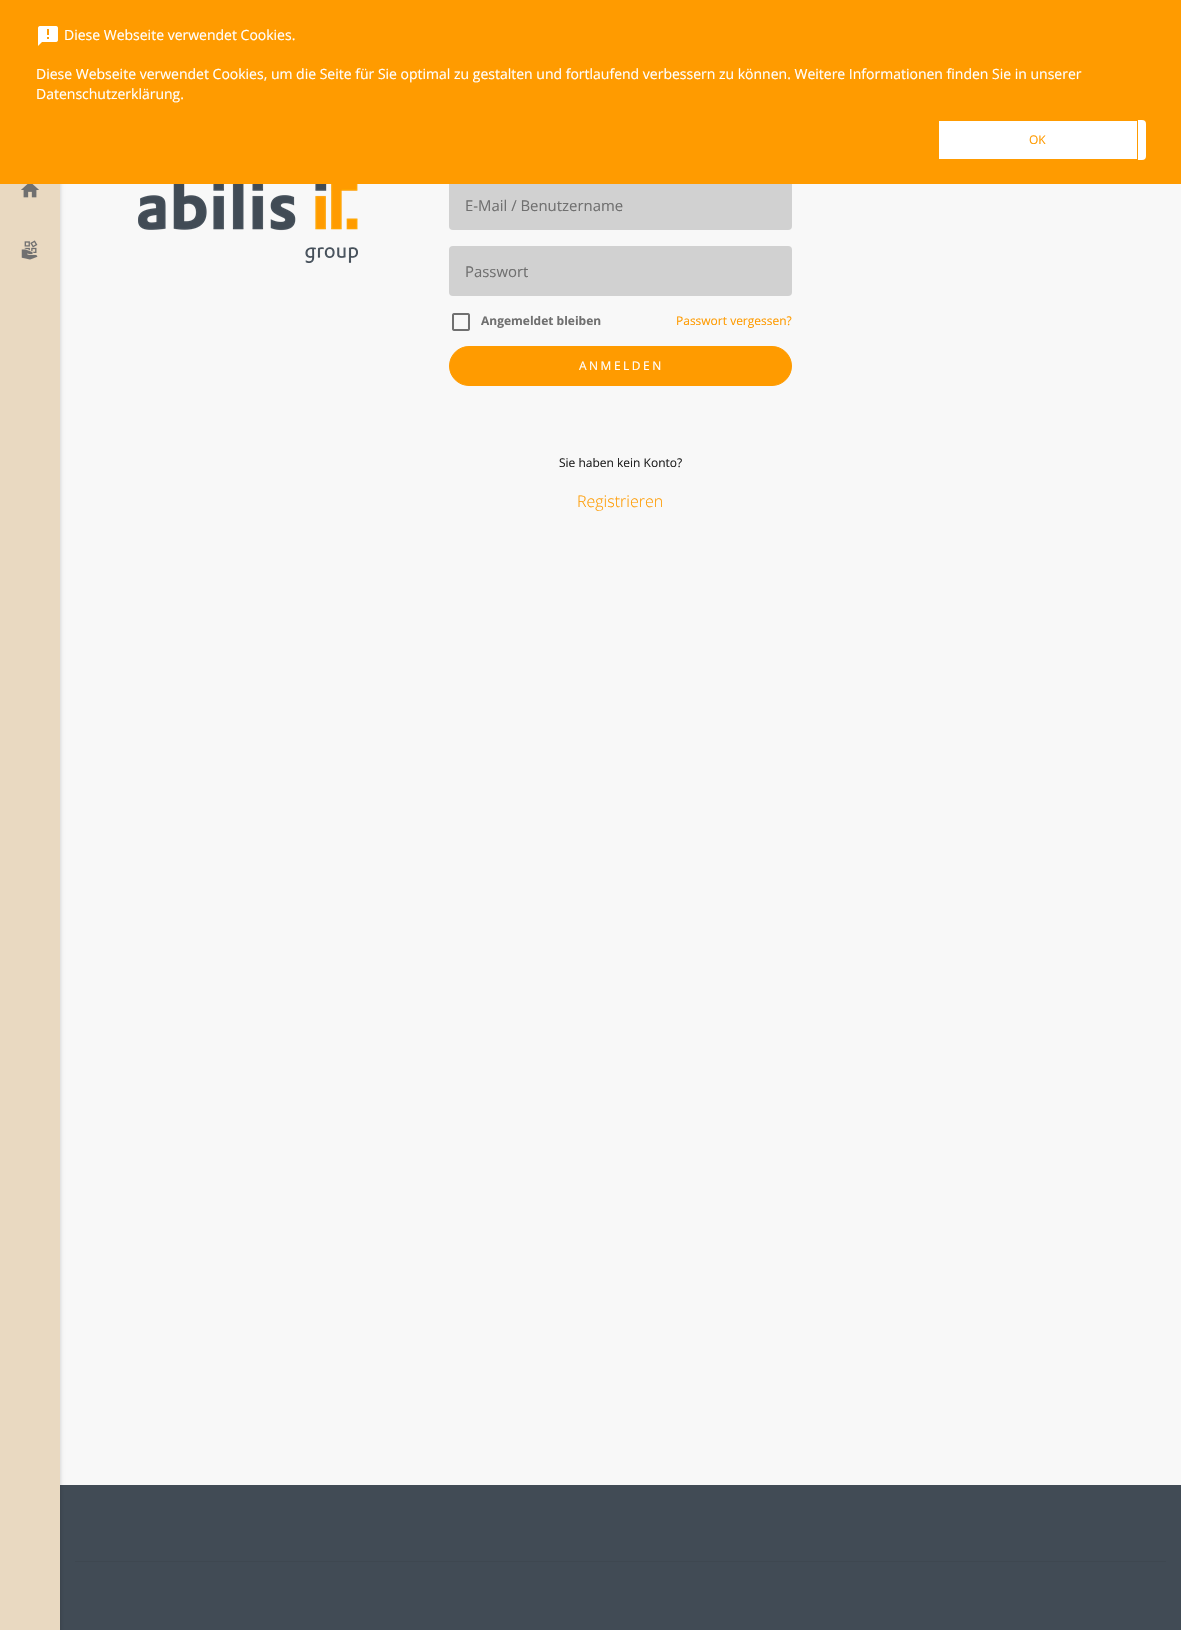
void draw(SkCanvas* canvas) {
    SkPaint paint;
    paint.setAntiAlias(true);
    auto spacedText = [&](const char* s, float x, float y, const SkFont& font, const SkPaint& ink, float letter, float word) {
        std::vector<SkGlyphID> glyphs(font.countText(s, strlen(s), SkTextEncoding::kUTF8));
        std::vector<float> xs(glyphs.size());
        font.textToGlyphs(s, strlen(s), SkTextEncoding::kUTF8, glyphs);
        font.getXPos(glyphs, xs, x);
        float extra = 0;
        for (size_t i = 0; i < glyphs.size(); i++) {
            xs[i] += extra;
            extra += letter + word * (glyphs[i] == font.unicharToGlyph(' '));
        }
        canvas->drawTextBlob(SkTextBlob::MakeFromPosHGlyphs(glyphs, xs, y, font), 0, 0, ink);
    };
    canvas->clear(0xFFF8F8F8);
    paint.setColor(0xFF414B55);
    canvas->drawRect(SkRect::MakeXYWH(60, 1485, 1121, 145), paint);
    paint.setColor(0x33000000);
    paint.setMaskFilter(SkMaskFilter::MakeBlur(kNormal_SkBlurStyle, 2));
    canvas->drawRect(SkRect::MakeXYWH(0, 63, 60, 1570), paint);
    paint.setMaskFilter(nullptr);
    paint.setColor(0xFFE9D9C1);
    canvas->drawRect(SkRect::MakeXYWH(0, 184, 60, 1446), paint);
    canvas->drawImageRect(SkImages::DeferredFromEncodedData(SkData::MakeFromFileName("img1.png")), SkRect::MakeXYWH(21, 184, 18, 14), SkSamplingOptions());
    canvas->drawImageRect(SkImages::DeferredFromEncodedData(SkData::MakeFromFileName("img2.png")), SkRect::MakeXYWH(21, 240, 17, 20), SkSamplingOptions());
    paint.setColor(0xFFD1D1D1);
    canvas->drawRoundRect(SkRect::MakeXYWH(449, 180, 343, 50), 4, 4, paint);
    paint.setColor(0xFFFF9B00);
    canvas->drawRect(SkRect::MakeXYWH(0, 0, 1181, 184), paint);
    canvas->drawImageRect(SkImages::DeferredFromEncodedData(SkData::MakeFromFileName("img3.png")), SkRect::MakeXYWH(38, 26, 20, 20), SkSamplingOptions());
    SkFont font1(fontMgr->matchFamilyStyle("Open Sans", SkFontStyle::Normal()), 14);
    font1.setSubpixel(true);
    paint.setColor(0xFFFFFFFF);
    canvas->drawString("Diese Webseite verwendet Cookies.", 64, 40, font1, paint);
    canvas->drawString("Diese Webseite verwendet Cookies, um die Seite für Sie optimal zu gestalten und fortlaufend verbessern zu können. Weitere Informationen finden Sie in unserer", 36, 79, font1, paint);
    canvas->drawString("Datenschutzerklärung.", 36, 99, font1, paint);
    canvas->drawRoundRect(SkRect::MakeXYWH(938, 120, 208, 40), 4, 4, paint);
    canvas->drawRect(SkRect::MakeXYWH(939, 121, 1, 38), paint);
    paint.setStyle(SkPaint::kStroke_Style);
    paint.setStrokeWidth(1);
    paint.setColor(0xFFFF9B00);
    canvas->drawRect(SkRect::MakeXYWH(938.5f, 120.5f, 199, 39), paint);
    SkFont font2(fontMgr->matchFamilyStyle("Open Sans", SkFontStyle::Normal()), 12);
    font2.setSubpixel(true);
    paint.setStyle(SkPaint::kFill_Style);
    canvas->drawString("OK", 1029, 144, font2, paint);
    paint.setColor(0xFF3E4750);
    canvas->drawRect(SkRect::MakeXYWH(75, 1561, 1091, 1), paint);
    canvas->drawImageRect(SkImages::DeferredFromEncodedData(SkData::MakeFromFileName("img4.png")), SkRect::MakeXYWH(138, 184, 220, 79), SkSamplingOptions());
    SkFont font3(fontMgr->matchFamilyStyle("Open Sans", SkFontStyle::Normal()), 14.9f);
    font3.setSubpixel(true);
    paint.setColor(0xFF707070);
    canvas->drawString("E-Mail / Benutzername", 465, 211, font3, paint);
    paint.setColor(0xFFD1D1D1);
    canvas->drawRoundRect(SkRect::MakeXYWH(449, 246, 343, 50), 4, 4, paint);
    paint.setColor(0xFF707070);
    canvas->drawString("Passwort", 465, 277, font3, paint);
    canvas->drawImageRect(SkImages::DeferredFromEncodedData(SkData::MakeFromFileName("img5.png")), SkRect::MakeXYWH(452, 313, 18, 18), SkSamplingOptions());
    SkFont font4(fontMgr->matchFamilyStyle("Open Sans", SkFontStyle::Bold()), 12);
    font4.setSubpixel(true);
    canvas->drawString("Angemeldet bleiben", 481, 325, font4, paint);
    paint.setColor(0xFFFF9B00);
    canvas->drawString("Passwort vergessen?", 676, 325, font2, paint);
    canvas->drawRoundRect(SkRect::MakeXYWH(449.5f, 346.5f, 342, 39), 19.5f, 19.5f, paint);
    paint.setStyle(SkPaint::kStroke_Style);
    canvas->drawRoundRect(SkRect::MakeXYWH(449.5f, 346.5f, 342, 39), 19.5f, 19.5f, paint);
    paint.setStyle(SkPaint::kFill_Style);
    paint.setColor(0xFFFFFFFF);
    spacedText("ANMELDEN", 579, 370, font2, paint, 2.5f, 0);
    paint.setColor(0xFF222222);
    canvas->drawString("Sie haben kein Konto?", 559, 467, font2, paint);
    SkFont font5(fontMgr->matchFamilyStyle("Open Sans", SkFontStyle(300, SkFontStyle::kNormal_Width, SkFontStyle::kUpright_Slant)), 16);
    font5.setSubpixel(true);
    paint.setColor(0xFFFF9B00);
    canvas->drawString("Registrieren", 577, 507, font5, paint);
}
